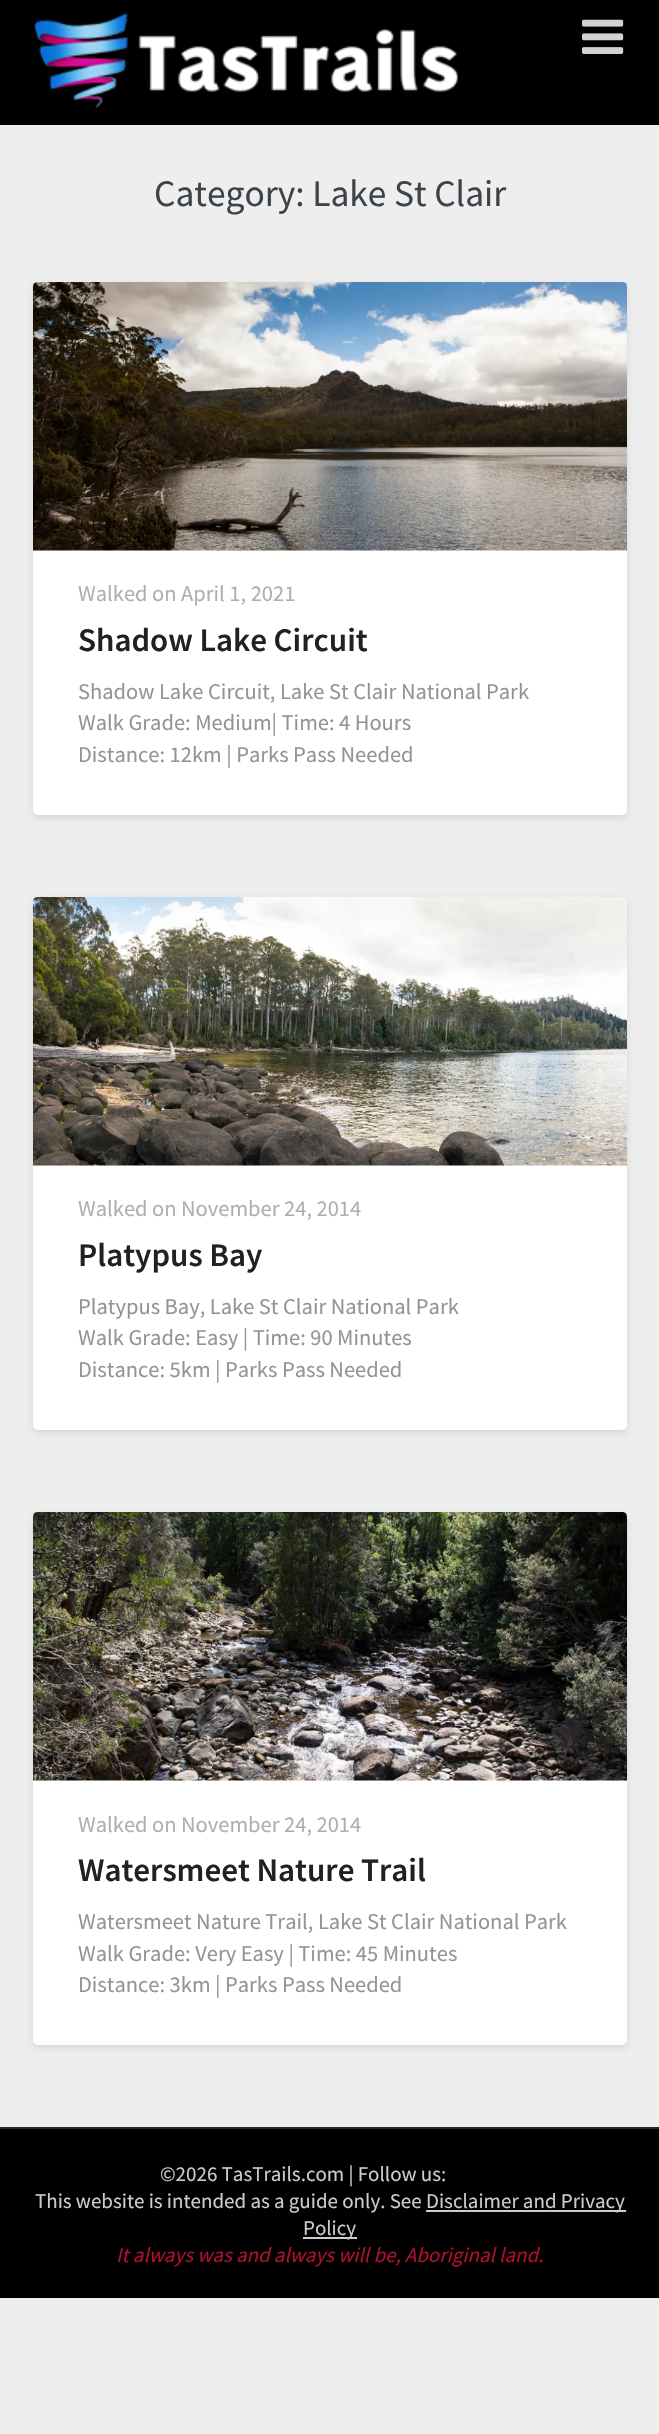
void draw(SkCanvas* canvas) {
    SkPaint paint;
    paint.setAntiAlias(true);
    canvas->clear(0xFFEEEEEE);
    paint.setColor(0xFF000000);
    canvas->drawRect(SkRect::MakeXYWH(0, 0, 659, 125), paint);
    canvas->drawImageRect(SkImages::DeferredFromEncodedData(SkData::MakeFromFileName("img1.png")), SkRect::MakeXYWH(34, 13, 424, 96), SkSamplingOptions());
    canvas->drawImageRect(SkImages::DeferredFromEncodedData(SkData::MakeFromFileName("img2.png")), SkRect::MakeXYWH(582, 19, 42, 35), SkSamplingOptions());
    SkFont font1(fontMgr->matchFamilyStyle("Source Sans Pro", SkFontStyle::Normal()), 37.5f);
    font1.setSubpixel(true);
    paint.setColor(0xFF3C434A);
    canvas->drawString("Category: Lake St Clair", 154, 206, font1, paint);
    paint.setColor(0x1A000000);
    paint.setMaskFilter(SkMaskFilter::MakeBlur(kNormal_SkBlurStyle, 3));
    canvas->drawRoundRect(SkRect::MakeXYWH(33, 285, 594, 533), 5, 5, paint);
    paint.setMaskFilter(nullptr);
    paint.setColor(0xFFFFFFFF);
    canvas->drawRoundRect(SkRect::MakeXYWH(33, 282, 594, 533), 5, 5, paint);
    canvas->drawImageRect(SkImages::DeferredFromEncodedData(SkData::MakeFromFileName("img3.png")), SkRect::MakeXYWH(33, 282, 594, 269), SkSamplingOptions());
    SkFont font2(fontMgr->matchFamilyStyle("Source Sans Pro", SkFontStyle::Normal()), 22.5f);
    font2.setSubpixel(true);
    paint.setColor(0xFFAFAFAF);
    canvas->drawString("Walked on April 1, 2021", 78, 601, font2, paint);
    SkFont font3(fontMgr->matchFamilyStyle("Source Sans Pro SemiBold", SkFontStyle(600, SkFontStyle::kNormal_Width, SkFontStyle::kUpright_Slant)), 33);
    font3.setSubpixel(true);
    paint.setColor(0xFF212121);
    canvas->drawString("Shadow Lake Circuit", 78, 651, font3, paint);
    paint.setColor(0xFF949494);
    canvas->drawString("Shadow Lake Circuit, Lake St Clair National Park", 78, 699, font2, paint);
    canvas->drawString("Walk Grade: Medium| Time: 4 Hours", 78, 730, font2, paint);
    canvas->drawString("Distance: 12km | Parks Pass Needed", 78, 762, font2, paint);
    paint.setColor(0x1A000000);
    paint.setMaskFilter(SkMaskFilter::MakeBlur(kNormal_SkBlurStyle, 3));
    canvas->drawRoundRect(SkRect::MakeXYWH(33, 900, 594, 533), 5, 5, paint);
    paint.setMaskFilter(nullptr);
    paint.setColor(0xFFFFFFFF);
    canvas->drawRoundRect(SkRect::MakeXYWH(33, 897, 594, 533), 5, 5, paint);
    canvas->drawImageRect(SkImages::DeferredFromEncodedData(SkData::MakeFromFileName("img4.png")), SkRect::MakeXYWH(33, 897, 594, 269), SkSamplingOptions());
    paint.setColor(0xFFAFAFAF);
    canvas->drawString("Walked on November 24, 2014", 78, 1216, font2, paint);
    paint.setColor(0xFF212121);
    canvas->drawString("Platypus Bay", 78, 1266, font3, paint);
    paint.setColor(0xFF949494);
    canvas->drawString("Platypus Bay, Lake St Clair National Park", 78, 1314, font2, paint);
    canvas->drawString("Walk Grade: Easy | Time: 90 Minutes", 78, 1345, font2, paint);
    canvas->drawString("Distance: 5km | Parks Pass Needed", 78, 1377, font2, paint);
    paint.setColor(0x1A000000);
    paint.setMaskFilter(SkMaskFilter::MakeBlur(kNormal_SkBlurStyle, 3));
    canvas->drawRoundRect(SkRect::MakeXYWH(33, 1515, 594, 533), 5, 5, paint);
    paint.setMaskFilter(nullptr);
    paint.setColor(0xFFFFFFFF);
    canvas->drawRoundRect(SkRect::MakeXYWH(33, 1512, 594, 533), 5, 5, paint);
    canvas->drawImageRect(SkImages::DeferredFromEncodedData(SkData::MakeFromFileName("img5.png")), SkRect::MakeXYWH(33, 1512, 594, 269), SkSamplingOptions());
    paint.setColor(0xFFAFAFAF);
    canvas->drawString("Walked on November 24, 2014", 78, 1832, font2, paint);
    paint.setColor(0xFF212121);
    canvas->drawString("Watersmeet Nature Trail", 78, 1881, font3, paint);
    paint.setColor(0xFF949494);
    canvas->drawString("Watersmeet Nature Trail, Lake St Clair National Park", 78, 1929, font2, paint);
    canvas->drawString("Walk Grade: Very Easy | Time: 45 Minutes", 78, 1961, font2, paint);
    canvas->drawString("Distance: 3km | Parks Pass Needed", 78, 1992, font2, paint);
    paint.setColor(0xFF000000);
    canvas->drawRect(SkRect::MakeXYWH(0, 2129, 659, 169), paint);
    paint.setColor(0xFF292929);
    canvas->drawRect(SkRect::MakeXYWH(0, 2127, 659, 2), paint);
    SkFont font4(fontMgr->matchFamilyStyle("Source Sans Pro", SkFontStyle::Normal()), 21);
    font4.setSubpixel(true);
    paint.setColor(0xFFCCCCCC);
    canvas->drawString("©2026 TasTrails.com | Follow us:", 160, 2181, font4, paint);
    canvas->drawString("This website is intended as a guide only. See", 35, 2208, font4, paint);
    canvas->drawRect(SkRect::MakeXYWH(426, 2210, 200, 2), paint);
    canvas->drawString("Disclaimer and Privacy", 426, 2208, font4, paint);
    canvas->drawRect(SkRect::MakeXYWH(303, 2237, 54, 2), paint);
    canvas->drawString("Policy", 303, 2235, font4, paint);
    SkFont font5(fontMgr->matchFamilyStyle("Source Sans Pro", SkFontStyle::Italic()), 21);
    font5.setSubpixel(true);
    paint.setColor(0xFFB01030);
    canvas->drawString("It always was and always will be, Aboriginal land.", 116, 2262, font5, paint);
}
